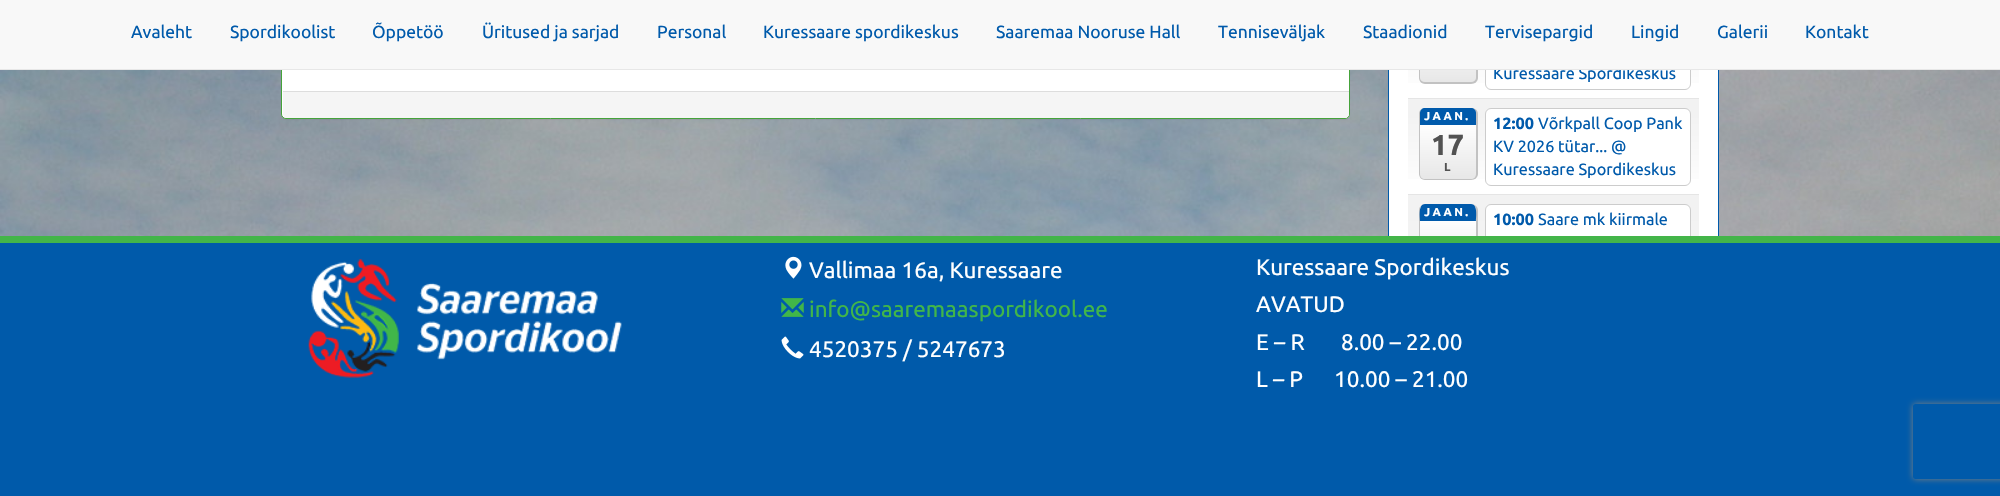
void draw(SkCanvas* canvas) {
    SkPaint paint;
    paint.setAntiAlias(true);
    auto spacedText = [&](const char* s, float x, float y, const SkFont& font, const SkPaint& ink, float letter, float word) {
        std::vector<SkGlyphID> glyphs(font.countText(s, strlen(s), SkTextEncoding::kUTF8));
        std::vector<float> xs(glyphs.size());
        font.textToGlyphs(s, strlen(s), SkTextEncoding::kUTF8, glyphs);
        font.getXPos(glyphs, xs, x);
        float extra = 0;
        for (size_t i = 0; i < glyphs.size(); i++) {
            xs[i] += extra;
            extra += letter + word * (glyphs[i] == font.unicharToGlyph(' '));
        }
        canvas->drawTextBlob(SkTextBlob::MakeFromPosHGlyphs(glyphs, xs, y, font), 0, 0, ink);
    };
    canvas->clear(0xFFFFFFFF);
    canvas->drawImageRect(SkImages::DeferredFromEncodedData(SkData::MakeFromFileName("img1.png")), SkRect::MakeXYWH(0, 70, 2000, 166), SkSamplingOptions());
    paint.setColor(0x0D000000);
    paint.setMaskFilter(SkMaskFilter::MakeBlur(kNormal_SkBlurStyle, 0.5f));
    canvas->drawRoundRect(SkRect::MakeXYWH(281, -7, 1069, 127), 5, 5, paint);
    paint.setMaskFilter(nullptr);
    paint.setColor(0xFFFFFFFF);
    canvas->drawRoundRect(SkRect::MakeXYWH(281.5f, -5.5f, 1068, 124), 4.5f, 4.5f, paint);
    paint.setStyle(SkPaint::kStroke_Style);
    paint.setStrokeWidth(1);
    paint.setColor(0xFF45A33A);
    canvas->drawRoundRect(SkRect::MakeXYWH(281.5f, -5.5f, 1068, 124), 4.5f, 4.5f, paint);
    paint.setStyle(SkPaint::kFill_Style);
    paint.setColor(0xFFFFFFFF);
    canvas->drawRect(SkRect::MakeXYWH(1389, 70, 329, 166), paint);
    paint.setStyle(SkPaint::kStroke_Style);
    paint.setColor(0xFF005AAB);
    canvas->drawRect(SkRect::MakeXYWH(1388.5f, -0.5f, 330, 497), paint);
    paint.setStyle(SkPaint::kFill_Style);
    {
        const SkColor colors[] = {0xFFF2F2F2, 0xFFF2F2F2, 0xFFFFFFFF};
        const float stops[] = {0, 0.17f, 1};
        const SkPoint ends[] = {{1553, 2.5f}, {1553, 98}};
        paint.setShader(SkGradientShader::MakeLinear(ends, colors, stops, 3, SkTileMode::kClamp));
        paint.setAlpha(255);
    }
    canvas->drawRect(SkRect::MakeXYWH(1408, 70, 291, 13), paint);
    canvas->save();
    canvas->clipPath(SkPathBuilder().moveTo(1425, 11).lineTo(1472, 11).cubicTo(1475.5f, 11, 1478, 13.5f, 1478, 17).lineTo(1478, 78).cubicTo(1478, 81.5f, 1475.5f, 84, 1472, 84).lineTo(1425, 84).cubicTo(1421.5f, 84, 1419, 81.5f, 1419, 78).lineTo(1419, 17).cubicTo(1419, 13.5f, 1421.5f, 11, 1425, 11).close().detach(), true);
    {
        const SkColor colors[] = {0xFFFFFFFF, 0xFFFFFFFF, 0xFFE7E7E7};
        const float stops[] = {0, 0.21f, 1};
        const SkPoint ends[] = {{1448, 11}, {1448, 83}};
        paint.setShader(SkGradientShader::MakeLinear(ends, colors, stops, 3, SkTileMode::kClamp));
        paint.setAlpha(255);
    }
    canvas->drawRect(SkRect::MakeXYWH(1420, 70, 56, 13), paint);
    canvas->restore();
    paint.setShader(nullptr);
    paint.setColor(0xFFC2C2C2);
    canvas->drawPath(SkPathBuilder(SkPathFillType::kEvenOdd).moveTo(1425, 11).lineTo(1471, 11).cubicTo(1475, 11, 1478, 14, 1478, 18).lineTo(1478, 78).cubicTo(1478, 81, 1475, 84, 1471, 84).lineTo(1425, 84).cubicTo(1422, 84, 1419, 81, 1419, 78).lineTo(1419, 18).cubicTo(1419, 14, 1422, 11, 1425, 11).close().moveTo(1425, 11).lineTo(1471, 11).cubicTo(1474, 11, 1476, 14, 1476, 18).lineTo(1476, 78).cubicTo(1476, 80, 1474, 82, 1471, 82).lineTo(1425, 82).cubicTo(1422, 82, 1420, 80, 1420, 78).lineTo(1420, 18).cubicTo(1420, 14, 1422, 11, 1425, 11).close().detach(), paint);
    paint.setColor(0xFFFFFFFF);
    canvas->drawRoundRect(SkRect::MakeXYWH(1485.5f, 11.5f, 205, 78), 5.5f, 5.5f, paint);
    paint.setStyle(SkPaint::kStroke_Style);
    paint.setColor(0xFFCCCCCC);
    canvas->drawRoundRect(SkRect::MakeXYWH(1485.5f, 11.5f, 205, 78), 5.5f, 5.5f, paint);
    SkFont font1(fontMgr->matchFamilyStyle("Ubuntu", SkFontStyle::Normal()), 16.25f);
    font1.setSubpixel(true);
    paint.setStyle(SkPaint::kFill_Style);
    paint.setColor(0xFF005AAB);
    canvas->drawString("Kuressaare Spordikeskus", 1493, 79, font1, paint);
    paint.setColor(0xFFF8F8F8);
    canvas->drawRect(SkRect::MakeXYWH(0, 0, 2000, 69), paint);
    paint.setColor(0xFFE7E7E7);
    canvas->drawRect(SkRect::MakeXYWH(0, 69, 2000, 1), paint);
    SkFont font2(fontMgr->matchFamilyStyle("Ubuntu", SkFontStyle::Normal()), 17.5f);
    font2.setSubpixel(true);
    paint.setColor(0xFF005AAB);
    canvas->drawString("Avaleht", 131, 38, font2, paint);
    canvas->drawString("Spordikoolist", 230, 38, font2, paint);
    canvas->drawString("Õppetöö", 372, 38, font2, paint);
    canvas->drawString("Üritused ja sarjad", 482, 38, font2, paint);
    canvas->drawString("Personal", 657, 38, font2, paint);
    canvas->drawString("Kuressaare spordikeskus", 763, 38, font2, paint);
    canvas->drawString("Saaremaa Nooruse Hall", 996, 38, font2, paint);
    canvas->drawString("Tenniseväljak", 1218, 38, font2, paint);
    canvas->drawString("Staadionid", 1363, 38, font2, paint);
    canvas->drawString("Tervisepargid", 1485, 38, font2, paint);
    canvas->drawString("Lingid", 1631, 38, font2, paint);
    canvas->drawString("Galerii", 1717, 38, font2, paint);
    canvas->drawString("Kontakt", 1805, 38, font2, paint);
    paint.setColor(0xFFF5F5F5);
    canvas->drawPath(SkPathBuilder().moveTo(283, 91).lineTo(1349, 91).lineTo(1349, 114).cubicTo(1349, 116, 1347, 118, 1345, 118).lineTo(287, 118).cubicTo(285, 118, 283, 116, 283, 114).close().detach(), paint);
    paint.setColor(0xFFDDDDDD);
    canvas->drawRect(SkRect::MakeXYWH(283, 91, 1066, 1), paint);
    {
        const SkColor colors[] = {0xFFF2F2F2, 0xFFF2F2F2, 0xFFFFFFFF};
        const float stops[] = {0, 0.17f, 1};
        const SkPoint ends[] = {{1553, 99}, {1553, 194}};
        paint.setShader(SkGradientShader::MakeLinear(ends, colors, stops, 3, SkTileMode::kClamp));
        paint.setAlpha(255);
    }
    canvas->drawRect(SkRect::MakeXYWH(1408, 99, 291, 80), paint);
    paint.setShader(nullptr);
    paint.setColor(0xFFE5E5E5);
    canvas->drawRect(SkRect::MakeXYWH(1408, 98, 291, 1), paint);
    canvas->save();
    canvas->clipPath(SkPathBuilder().moveTo(1425, 108).lineTo(1472, 108).cubicTo(1475.5f, 108, 1478, 110.5f, 1478, 114).lineTo(1478, 174).cubicTo(1478, 177.5f, 1475.5f, 180, 1472, 180).lineTo(1425, 180).cubicTo(1421.5f, 180, 1419, 177.5f, 1419, 174).lineTo(1419, 114).cubicTo(1419, 110.5f, 1421.5f, 108, 1425, 108).close().detach(), true);
    {
        const SkColor colors[] = {0xFFFFFFFF, 0xFFFFFFFF, 0xFFE7E7E7};
        const float stops[] = {0, 0.21f, 1};
        const SkPoint ends[] = {{1448, 108}, {1448, 179}};
        paint.setShader(SkGradientShader::MakeLinear(ends, colors, stops, 3, SkTileMode::kClamp));
        paint.setAlpha(255);
    }
    canvas->drawRect(SkRect::MakeXYWH(1420, 108, 56, 71), paint);
    canvas->restore();
    paint.setShader(nullptr);
    paint.setColor(0xFFC2C2C2);
    canvas->drawPath(SkPathBuilder(SkPathFillType::kEvenOdd).moveTo(1425, 108).lineTo(1471, 108).cubicTo(1475, 108, 1478, 110, 1478, 114).lineTo(1478, 174).cubicTo(1478, 177, 1475, 180, 1471, 180).lineTo(1425, 180).cubicTo(1422, 180, 1419, 177, 1419, 174).lineTo(1419, 114).cubicTo(1419, 110, 1422, 108, 1425, 108).close().moveTo(1425, 108).lineTo(1471, 108).cubicTo(1474, 108, 1476, 110, 1476, 114).lineTo(1476, 174).cubicTo(1476, 177, 1474, 179, 1471, 179).lineTo(1425, 179).cubicTo(1422, 179, 1420, 177, 1420, 174).lineTo(1420, 114).cubicTo(1420, 110, 1422, 108, 1425, 108).close().detach(), paint);
    paint.setColor(0xFF005AAB);
    canvas->drawPath(SkPathBuilder().moveTo(1425, 108).lineTo(1471, 108).cubicTo(1474, 108, 1476, 110, 1476, 113).lineTo(1476, 125).lineTo(1420, 125).lineTo(1420, 113).cubicTo(1420, 110, 1422, 108, 1425, 108).close().detach(), paint);
    SkFont font3(fontMgr->matchFamilyStyle("Ubuntu", SkFontStyle::Bold()), 11.5f);
    font3.setSubpixel(true);
    paint.setColor(0xFFFFFFFF);
    spacedText("JAAN.", 1424, 120, font3, paint, 2.5f, 0);
    SkFont font4(fontMgr->matchFamilyStyle("Ubuntu", SkFontStyle::Bold()), 29);
    font4.setSubpixel(true);
    paint.setColor(0xFF525252);
    canvas->drawString("17", 1431, 155, font4, paint);
    canvas->drawString("L", 1444, 171, font3, paint);
    paint.setColor(0xFFFFFFFF);
    canvas->drawRoundRect(SkRect::MakeXYWH(1485.5f, 108.5f, 205, 77), 5.5f, 5.5f, paint);
    paint.setStyle(SkPaint::kStroke_Style);
    paint.setColor(0xFFCCCCCC);
    canvas->drawRoundRect(SkRect::MakeXYWH(1485.5f, 108.5f, 205, 77), 5.5f, 5.5f, paint);
    SkFont font5(fontMgr->matchFamilyStyle("Ubuntu", SkFontStyle::Bold()), 16.25f);
    font5.setSubpixel(true);
    paint.setStyle(SkPaint::kFill_Style);
    paint.setColor(0xFF005AAB);
    canvas->drawString("12:00", 1493, 129, font5, paint);
    canvas->drawString("Võrkpall Coop Pank", 1538, 129, font1, paint);
    canvas->drawString("KV 2026 tütar... @", 1493, 152, font1, paint);
    canvas->drawString("Kuressaare Spordikeskus", 1493, 175, font1, paint);
    {
        const SkColor colors[] = {0xFFF2F2F2, 0xFFF2F2F2, 0xFFFFFFFF};
        const float stops[] = {0, 0.06f, 1};
        const SkPoint ends[] = {{1553, 195}, {1553, 464}};
        paint.setShader(SkGradientShader::MakeLinear(ends, colors, stops, 3, SkTileMode::kClamp));
        paint.setAlpha(255);
    }
    canvas->drawRect(SkRect::MakeXYWH(1408, 195, 291, 41), paint);
    paint.setShader(nullptr);
    paint.setColor(0xFFE5E5E5);
    canvas->drawRect(SkRect::MakeXYWH(1408, 194, 291, 1), paint);
    canvas->save();
    canvas->clipPath(SkPathBuilder().moveTo(1425, 204).lineTo(1472, 204).cubicTo(1475.5f, 204, 1478, 206.5f, 1478, 210).lineTo(1478, 270).cubicTo(1478, 273.5f, 1475.5f, 276, 1472, 276).lineTo(1425, 276).cubicTo(1421.5f, 276, 1419, 273.5f, 1419, 270).lineTo(1419, 210).cubicTo(1419, 206.5f, 1421.5f, 204, 1425, 204).close().detach(), true);
    {
        const SkColor colors[] = {0xFFFFFFFF, 0xFFFFFFFF, 0xFFE7E7E7};
        const float stops[] = {0, 0.21f, 1};
        const SkPoint ends[] = {{1448, 204}, {1448, 275}};
        paint.setShader(SkGradientShader::MakeLinear(ends, colors, stops, 3, SkTileMode::kClamp));
        paint.setAlpha(255);
    }
    canvas->drawRect(SkRect::MakeXYWH(1420, 204, 56, 32), paint);
    canvas->restore();
    paint.setShader(nullptr);
    paint.setColor(0xFFC2C2C2);
    canvas->drawPath(SkPathBuilder(SkPathFillType::kEvenOdd).moveTo(1425, 204).lineTo(1471, 204).cubicTo(1475, 204, 1478, 207, 1478, 210).lineTo(1478, 270).cubicTo(1478, 273, 1475, 276, 1471, 276).lineTo(1425, 276).cubicTo(1422, 276, 1419, 273, 1419, 270).lineTo(1419, 210).cubicTo(1419, 207, 1422, 204, 1425, 204).close().moveTo(1425, 204).lineTo(1471, 204).cubicTo(1474, 204, 1476, 207, 1476, 210).lineTo(1476, 270).cubicTo(1476, 273, 1474, 275, 1471, 275).lineTo(1425, 275).cubicTo(1422, 275, 1420, 273, 1420, 270).lineTo(1420, 210).cubicTo(1420, 207, 1422, 204, 1425, 204).close().detach(), paint);
    paint.setColor(0xFF005AAB);
    canvas->drawPath(SkPathBuilder().moveTo(1425, 204).cubicTo(1418, 204, 1420, 217, 1420, 221).lineTo(1476, 221).cubicTo(1476, 217, 1478, 204, 1471, 204).close().detach(), paint);
    paint.setColor(0xFFFFFFFF);
    spacedText("JAAN.", 1424, 216, font3, paint, 2.5f, 0);
    canvas->drawRoundRect(SkRect::MakeXYWH(1485.5f, 204.5f, 205, 76), 5.5f, 5.5f, paint);
    paint.setStyle(SkPaint::kStroke_Style);
    paint.setColor(0xFFCCCCCC);
    canvas->drawRoundRect(SkRect::MakeXYWH(1485.5f, 204.5f, 205, 76), 5.5f, 5.5f, paint);
    paint.setStyle(SkPaint::kFill_Style);
    paint.setColor(0xFF005AAB);
    canvas->drawString("10:00", 1493, 225, font5, paint);
    canvas->drawString("Saare mk kiirmale", 1538, 225, font1, paint);
    paint.setColor(0xFF005AAA);
    canvas->drawRect(SkRect::MakeXYWH(0, 243, 2000, 253), paint);
    paint.setColor(0xFF43B549);
    canvas->drawRect(SkRect::MakeXYWH(0, 236, 2000, 7), paint);
    canvas->drawImageRect(SkImages::DeferredFromEncodedData(SkData::MakeFromFileName("img2.png")), SkRect::MakeXYWH(308, 258, 314, 120), SkSamplingOptions());
    canvas->drawImageRect(SkImages::DeferredFromEncodedData(SkData::MakeFromFileName("img3.png")), SkRect::MakeXYWH(785, 256, 17, 23), SkSamplingOptions());
    SkFont font6(fontMgr->matchFamilyStyle("Ubuntu", SkFontStyle::Normal()), 22.5f);
    font6.setSubpixel(true);
    paint.setColor(0xFFFFFFFF);
    canvas->drawString("Vallimaa 16a, Kuressaare", 809, 278, font6, paint);
    canvas->drawImageRect(SkImages::DeferredFromEncodedData(SkData::MakeFromFileName("img4.png")), SkRect::MakeXYWH(781, 298, 23, 19), SkSamplingOptions());
    paint.setColor(0xFF41B649);
    canvas->drawString("info@saaremaaspordikool.ee", 809, 317, font6, paint);
    canvas->drawImageRect(SkImages::DeferredFromEncodedData(SkData::MakeFromFileName("img5.png")), SkRect::MakeXYWH(781, 336, 23, 23), SkSamplingOptions());
    paint.setColor(0xFFFFFFFF);
    canvas->drawString("4520375 / 5247673", 809, 357, font6, paint);
    canvas->drawString("Kuressaare Spordikeskus", 1256, 275, font6, paint);
    canvas->drawString("AVATUD", 1256, 312, font6, paint);
    canvas->drawString("E – R       8.00 – 22.00", 1256, 350, font6, paint);
    canvas->drawString("L – P      10.00 – 21.00", 1256, 387, font6, paint);
    canvas->save();
    canvas->clipPath(SkPathBuilder(SkPathFillType::kEvenOdd).moveTo(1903, 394).lineTo(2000, 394).lineTo(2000, 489).lineTo(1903, 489).close().moveTo(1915.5f, 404).lineTo(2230.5f, 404).cubicTo(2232, 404, 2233, 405, 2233, 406.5f).lineTo(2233, 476.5f).cubicTo(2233, 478, 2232, 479, 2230.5f, 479).lineTo(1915.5f, 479).cubicTo(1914, 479, 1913, 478, 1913, 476.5f).lineTo(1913, 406.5f).cubicTo(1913, 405, 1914, 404, 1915.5f, 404).close().detach(), true);
    paint.setColor(0xFF808080);
    paint.setMaskFilter(SkMaskFilter::MakeBlur(kNormal_SkBlurStyle, 3));
    canvas->drawRoundRect(SkRect::MakeXYWH(1913, 404, 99, 75), 2.5f, 2.5f, paint);
    paint.setMaskFilter(nullptr);
    canvas->restore();
}
